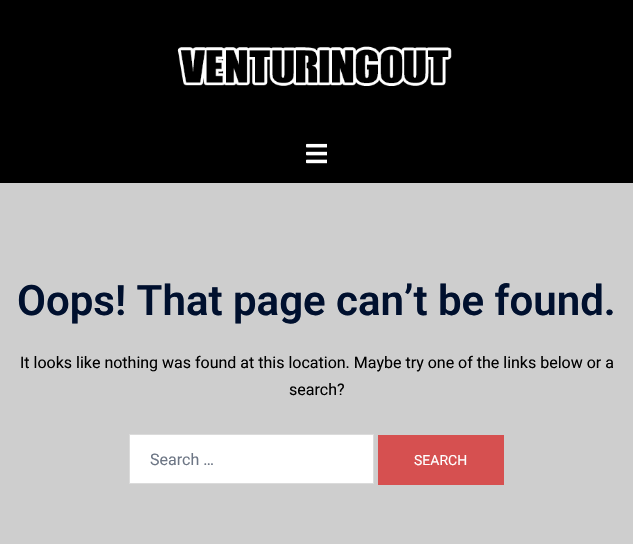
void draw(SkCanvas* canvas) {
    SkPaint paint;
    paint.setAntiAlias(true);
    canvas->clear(0xFFCECECE);
    paint.setColor(0xFF000000);
    canvas->drawRect(SkRect::MakeXYWH(0, 0, 633, 183), paint);
    canvas->drawImageRect(SkImages::DeferredFromEncodedData(SkData::MakeFromFileName("img1.png")), SkRect::MakeXYWH(177, 46, 275, 40), SkSamplingOptions());
    canvas->drawImageRect(SkImages::DeferredFromEncodedData(SkData::MakeFromFileName("img2.png")), SkRect::MakeXYWH(306, 143, 21, 21), SkSamplingOptions());
    SkFont font1(fontMgr->matchFamilyStyle("Roboto", SkFontStyle(600, SkFontStyle::kNormal_Width, SkFontStyle::kUpright_Slant)), 42);
    font1.setSubpixel(true);
    paint.setColor(0xFF00102E);
    canvas->drawString("Oops! That page can’t be found.", 17, 315, font1, paint);
    SkFont font2(fontMgr->matchFamilyStyle("Roboto", SkFontStyle::Normal()), 16);
    font2.setSubpixel(true);
    paint.setColor(0xFF000000);
    canvas->drawString("It looks like nothing was found at this location. Maybe try one of the links below or a", 20, 368, font2, paint);
    canvas->drawString("search?", 289, 395, font2, paint);
    paint.setColor(0xFFFFFFFF);
    canvas->drawRect(SkRect::MakeXYWH(129.5f, 434.5f, 244, 49), paint);
    paint.setStyle(SkPaint::kStroke_Style);
    paint.setStrokeWidth(1);
    paint.setColor(0xFFDBDBDB);
    canvas->drawRect(SkRect::MakeXYWH(129.5f, 434.5f, 244, 49), paint);
    paint.setStyle(SkPaint::kFill_Style);
    paint.setColor(0xFF6D7685);
    canvas->drawString("Search …", 150, 465, font2, paint);
    paint.setColor(0xFFD65050);
    canvas->drawRect(SkRect::MakeXYWH(378, 435, 126, 50), paint);
    SkFont font3(fontMgr->matchFamilyStyle("Roboto", SkFontStyle::Normal()), 14);
    font3.setSubpixel(true);
    paint.setColor(0xFFFFFFFF);
    canvas->drawString("SEARCH", 414, 465, font3, paint);
}
